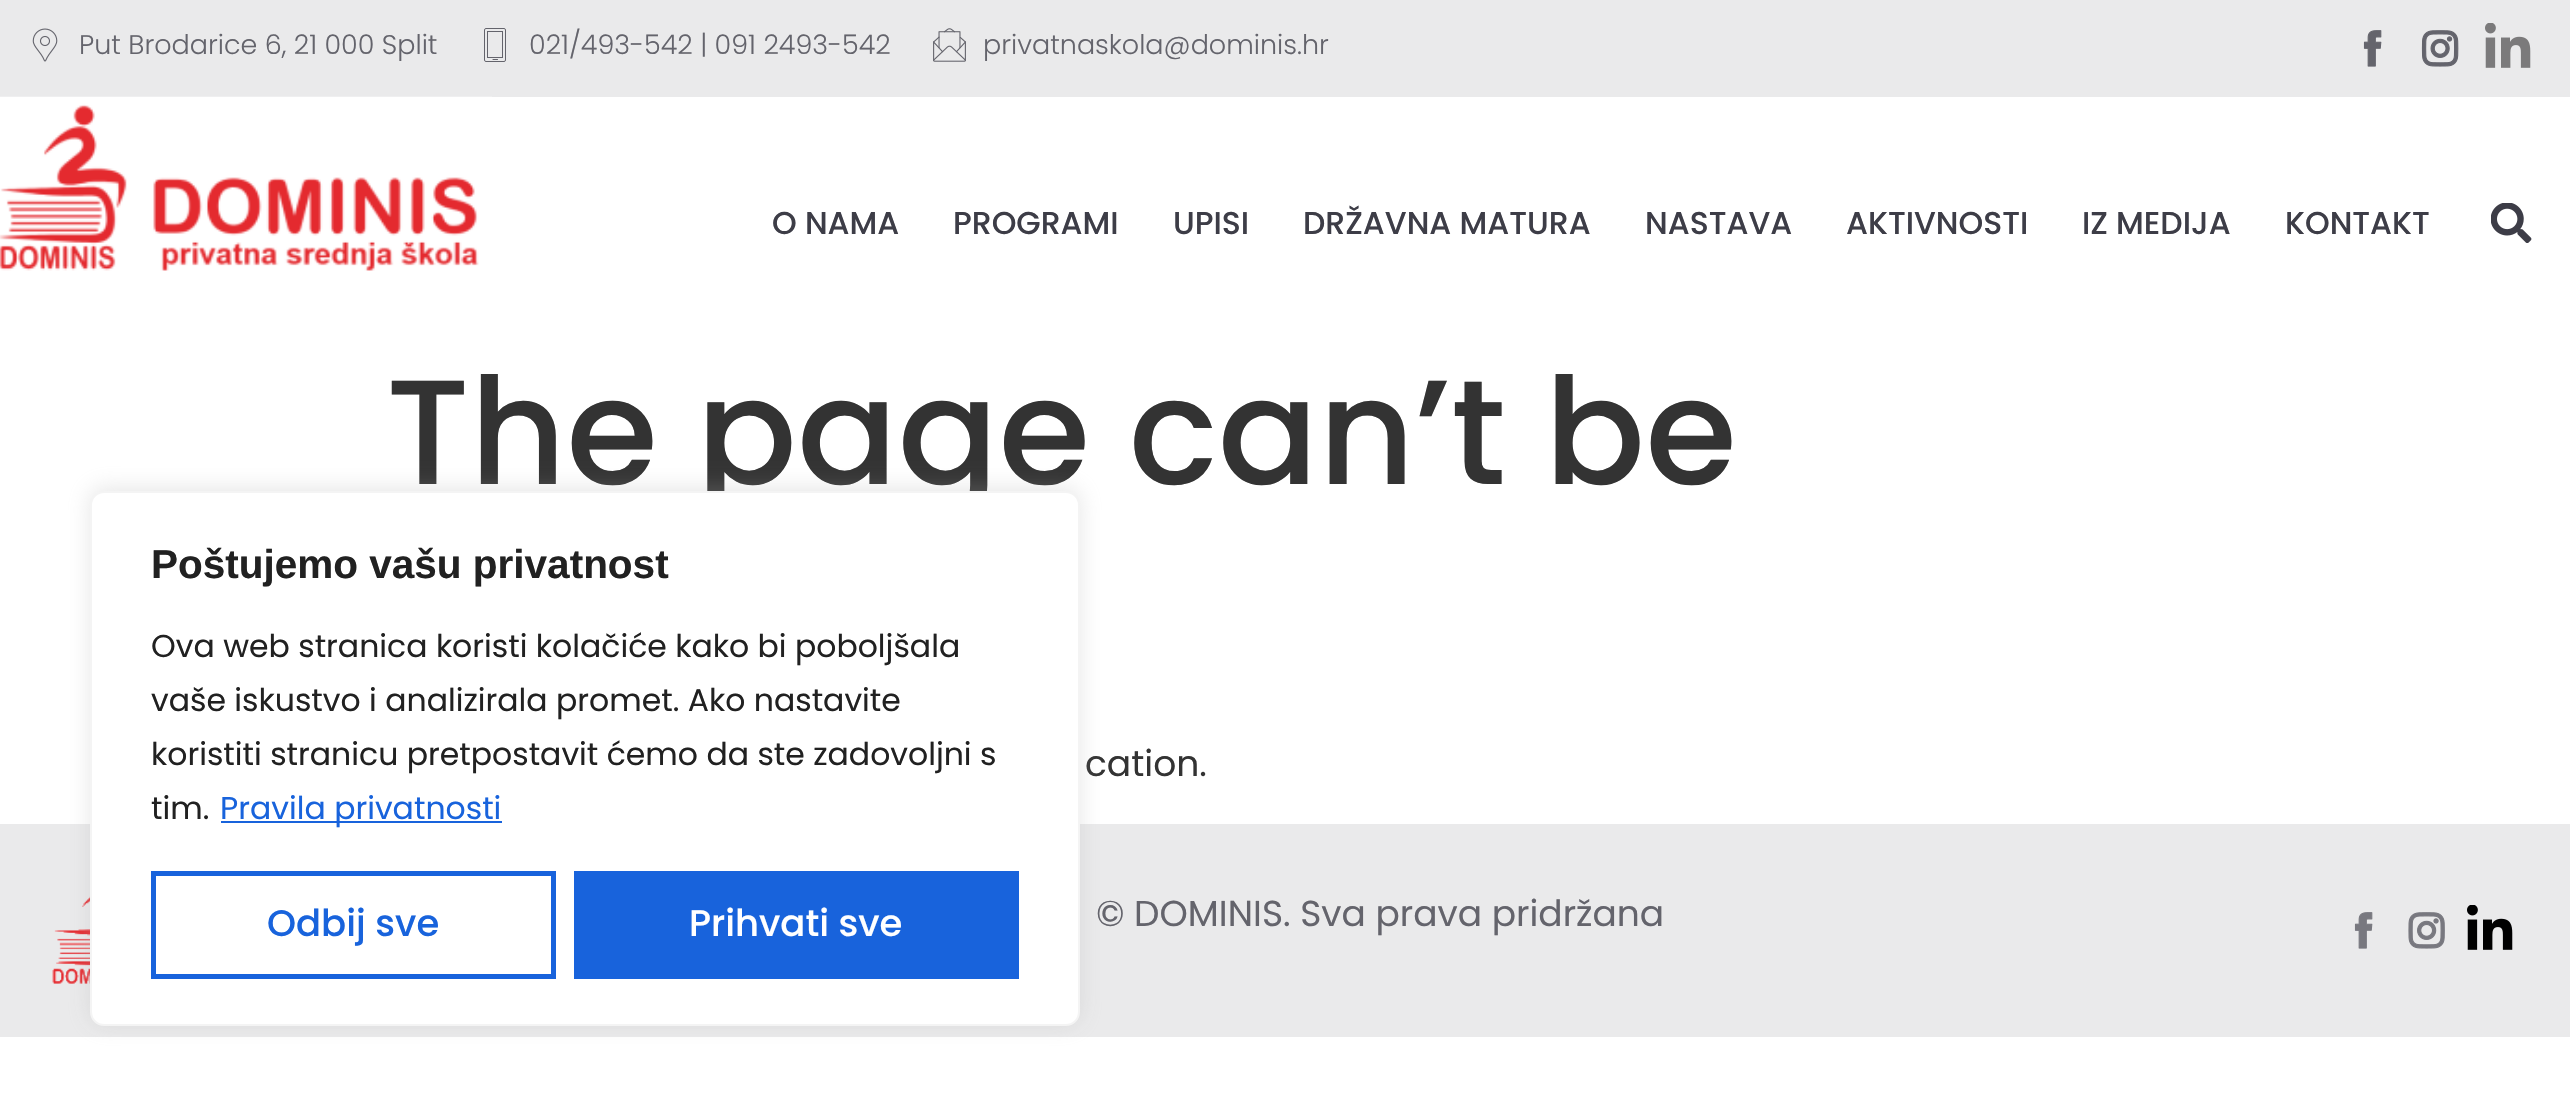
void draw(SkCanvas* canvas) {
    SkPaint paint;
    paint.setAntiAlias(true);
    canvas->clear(0xFFFFFFFF);
    paint.setColor(0xFFEAEAEB);
    canvas->drawRect(SkRect::MakeXYWH(0, 0, 2570, 97), paint);
    canvas->drawImageRect(SkImages::DeferredFromEncodedData(SkData::MakeFromFileName("img1.png")), SkRect::MakeXYWH(32, 28, 26, 34), SkSamplingOptions());
    SkFont font1(fontMgr->matchFamilyStyle("Poppins", SkFontStyle(300, SkFontStyle::kNormal_Width, SkFontStyle::kUpright_Slant)), 27);
    font1.setSubpixel(true);
    paint.setColor(0xFF64646C);
    canvas->drawString("Put Brodarice 6, 21 000 Split", 79, 54, font1, paint);
    paint.setStyle(SkPaint::kStroke_Style);
    paint.setStrokeWidth(1);
    canvas->drawRoundRect(SkRect::MakeXYWH(484.5f, 28.5f, 21, 33), 1.5f, 1.5f, paint);
    canvas->drawRect(SkRect::MakeXYWH(487.5f, 31.5f, 15, 26), paint);
    paint.setStrokeWidth(1.1f);
    paint.setStrokeCap(SkPaint::kRound_Cap);
    paint.setStrokeJoin(SkPaint::kRound_Join);
    canvas->drawPath(SkPathBuilder().moveTo(493, 59.5f).lineTo(497.5f, 59.5f).detach(), paint);
    paint.setStyle(SkPaint::kFill_Style);
    canvas->drawString("021/493-542 | 091 2493-542", 529, 54, font1, paint);
    canvas->drawImageRect(SkImages::DeferredFromEncodedData(SkData::MakeFromFileName("img2.png")), SkRect::MakeXYWH(933, 28, 33, 34), SkSamplingOptions());
    canvas->drawString("privatnaskola@dominis.hr", 983, 54, font1, paint);
    canvas->drawImageRect(SkImages::DeferredFromEncodedData(SkData::MakeFromFileName("img3.png")), SkRect::MakeXYWH(2363, 30, 19, 37), SkSamplingOptions());
    canvas->drawImageRect(SkImages::DeferredFromEncodedData(SkData::MakeFromFileName("img4.png")), SkRect::MakeXYWH(2421, 30, 38, 37), SkSamplingOptions());
    canvas->drawImageRect(SkImages::DeferredFromEncodedData(SkData::MakeFromFileName("img5.png")), SkRect::MakeXYWH(2485, 23, 46, 45), SkSamplingOptions());
    canvas->drawImageRect(SkImages::DeferredFromEncodedData(SkData::MakeFromFileName("img6.png")), SkRect::MakeXYWH(0, 96, 492, 175), SkSamplingOptions());
    SkFont font2(fontMgr->matchFamilyStyle("Poppins", SkFontStyle(500, SkFontStyle::kNormal_Width, SkFontStyle::kUpright_Slant)), 31.5f);
    font2.setSubpixel(true);
    paint.setColor(0xFF3D3D47);
    canvas->drawString("O NAMA", 772, 234, font2, paint);
    canvas->drawString("PROGRAMI", 953, 234, font2, paint);
    canvas->drawString("UPISI", 1173, 234, font2, paint);
    canvas->drawString("DRŽAVNA MATURA", 1303, 234, font2, paint);
    canvas->drawString("NASTAVA", 1645, 234, font2, paint);
    canvas->drawString("AKTIVNOSTI", 1846, 234, font2, paint);
    canvas->drawString("IZ MEDIJA", 2082, 234, font2, paint);
    canvas->drawString("KONTAKT", 2285, 234, font2, paint);
    canvas->drawImageRect(SkImages::DeferredFromEncodedData(SkData::MakeFromFileName("img7.png")), SkRect::MakeXYWH(2491, 203, 41, 40), SkSamplingOptions());
    SkFont font3(fontMgr->matchFamilyStyle("Poppins", SkFontStyle(500, SkFontStyle::kNormal_Width, SkFontStyle::kUpright_Slant)), 148.5f);
    font3.setSubpixel(true);
    paint.setColor(0xFF333333);
    canvas->drawString("The page can’t be", 386, 484, font3, paint);
    SkFont font4(fontMgr->matchFamilyStyle("Poppins", SkFontStyle::Normal()), 36);
    font4.setSubpixel(true);
    canvas->drawString("cation.", 1085, 776, font4, paint);
    paint.setColor(0xFFEAEAEB);
    canvas->drawRect(SkRect::MakeXYWH(0, 824, 2570, 213), paint);
    canvas->drawImageRect(SkImages::DeferredFromEncodedData(SkData::MakeFromFileName("img8.png")), SkRect::MakeXYWH(52, 896, 38, 88), SkSamplingOptions());
    paint.setColor(0x4DACABAB);
    paint.setMaskFilter(SkMaskFilter::MakeBlur(kNormal_SkBlurStyle, 11));
    canvas->drawRoundRect(SkRect::MakeXYWH(90, 488, 990, 536), 14, 14, paint);
    paint.setMaskFilter(nullptr);
    paint.setColor(0xFFFFFFFF);
    canvas->drawRoundRect(SkRect::MakeXYWH(91, 492, 988, 533), 13, 13, paint);
    paint.setStyle(SkPaint::kStroke_Style);
    paint.setStrokeWidth(2);
    paint.setStrokeCap(SkPaint::kButt_Cap);
    paint.setStrokeJoin(SkPaint::kMiter_Join);
    paint.setColor(0xFFF4F4F4);
    canvas->drawRoundRect(SkRect::MakeXYWH(91, 492, 988, 533), 13, 13, paint);
    SkFont font5(fontMgr->matchFamilyStyle("Liberation Sans", SkFontStyle::Bold()), 40.5f);
    font5.setSubpixel(true);
    paint.setStyle(SkPaint::kFill_Style);
    paint.setColor(0xFF212121);
    canvas->drawString("Poštujemo vašu privatnost", 151, 578, font5, paint);
    SkFont font6(fontMgr->matchFamilyStyle("Poppins", SkFontStyle::Normal()), 31.5f);
    font6.setSubpixel(true);
    canvas->drawString("Ova web stranica koristi kolačiće kako bi poboljšala", 151, 657, font6, paint);
    canvas->drawString("vaše iskustvo i analizirala promet. Ako nastavite", 151, 711, font6, paint);
    canvas->drawString("koristiti stranicu pretpostavit ćemo da ste zadovoljni s", 151, 765, font6, paint);
    canvas->drawString("tim.", 151, 819, font6, paint);
    paint.setColor(0xFF1863DC);
    canvas->drawRect(SkRect::MakeXYWH(221, 821, 281, 2), paint);
    canvas->drawString("Pravila privatnosti", 220, 819, font6, paint);
    paint.setStyle(SkPaint::kStroke_Style);
    paint.setStrokeWidth(5);
    canvas->drawRect(SkRect::MakeXYWH(153.5f, 873.5f, 400, 103), paint);
    SkFont font7(fontMgr->matchFamilyStyle("Poppins", SkFontStyle(500, SkFontStyle::kNormal_Width, SkFontStyle::kUpright_Slant)), 37);
    font7.setSubpixel(true);
    paint.setStyle(SkPaint::kFill_Style);
    canvas->drawString("Odbij sve", 267, 936, font7, paint);
    canvas->drawRect(SkRect::MakeXYWH(574, 871, 445, 108), paint);
    paint.setColor(0xFFFFFFFF);
    canvas->drawString("Prihvati sve", 689, 936, font7, paint);
    paint.setColor(0xFF64646C);
    canvas->drawString("© DOMINIS. Sva prava pridržana", 1096, 926, font4, paint);
    canvas->drawImageRect(SkImages::DeferredFromEncodedData(SkData::MakeFromFileName("img9.png")), SkRect::MakeXYWH(2354, 912, 19, 37), SkSamplingOptions());
    canvas->drawImageRect(SkImages::DeferredFromEncodedData(SkData::MakeFromFileName("img10.png")), SkRect::MakeXYWH(2408, 912, 37, 37), SkSamplingOptions());
    canvas->drawImageRect(SkImages::DeferredFromEncodedData(SkData::MakeFromFileName("img11.png")), SkRect::MakeXYWH(2467, 905, 46, 45), SkSamplingOptions());
}
